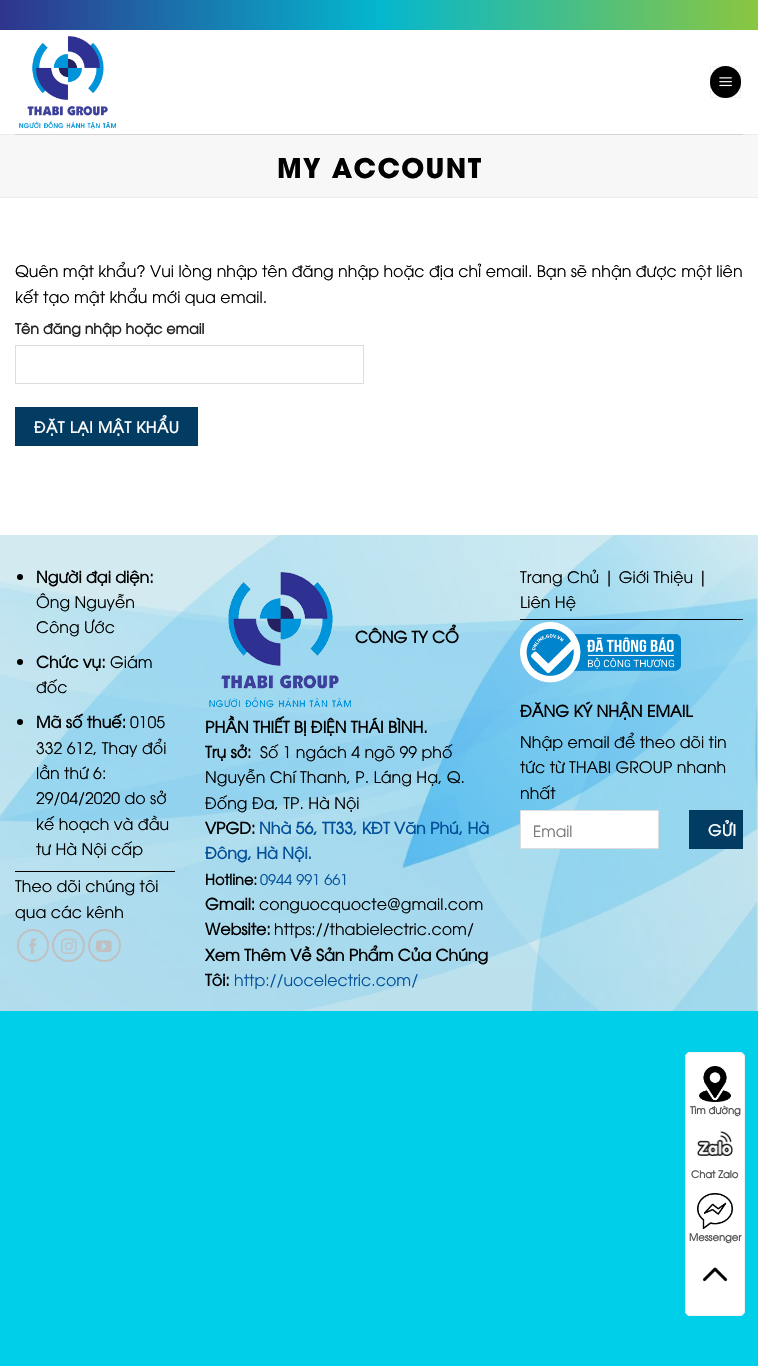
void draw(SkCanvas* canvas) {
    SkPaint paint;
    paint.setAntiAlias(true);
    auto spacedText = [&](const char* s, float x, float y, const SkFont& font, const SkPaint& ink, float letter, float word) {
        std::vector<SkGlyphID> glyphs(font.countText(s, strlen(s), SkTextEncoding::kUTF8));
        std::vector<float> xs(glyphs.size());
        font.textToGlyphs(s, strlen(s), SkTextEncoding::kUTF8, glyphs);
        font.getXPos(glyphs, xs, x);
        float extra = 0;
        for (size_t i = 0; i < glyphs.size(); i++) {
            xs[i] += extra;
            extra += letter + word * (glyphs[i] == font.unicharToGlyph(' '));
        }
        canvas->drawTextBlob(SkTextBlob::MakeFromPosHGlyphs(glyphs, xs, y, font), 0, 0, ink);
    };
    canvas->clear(0xFF00CFEA);
    paint.setColor(0xFFFFFFFF);
    canvas->drawRect(SkRect::MakeXYWH(0, 30, 758, 505), paint);
    {
        const SkColor colors[] = {0xFF2F348D, 0xFF04B7CE, 0xFF8AC640};
        const float stops[] = {0, 0.5f, 1};
        const SkPoint ends[] = {{0, 15}, {758, 15}};
        paint.setShader(SkGradientShader::MakeLinear(ends, colors, stops, 3, SkTileMode::kClamp));
        paint.setAlpha(255);
    }
    canvas->drawRect(SkRect::MakeXYWH(0, 0, 758, 30), paint);
    canvas->drawImageRect(SkImages::DeferredFromEncodedData(SkData::MakeFromFileName("img1.png")), SkRect::MakeXYWH(19, 36, 97, 94), SkSamplingOptions());
    paint.setShader(nullptr);
    paint.setColor(0xFF000000);
    canvas->drawRoundRect(SkRect::MakeXYWH(710, 66, 31, 32), 15.5f, 15.5f, paint);
    paint.setStyle(SkPaint::kStroke_Style);
    paint.setStrokeWidth(1);
    paint.setColor(0x0D000000);
    canvas->drawRect(SkRect::MakeXYWH(710.5f, 66.5f, 30, 31), paint);
    canvas->drawImageRect(SkImages::DeferredFromEncodedData(SkData::MakeFromFileName("img2.png")), SkRect::MakeXYWH(719, 77, 13, 10), SkSamplingOptions());
    paint.setStyle(SkPaint::kFill_Style);
    paint.setColor(0xFFECECEC);
    canvas->drawRect(SkRect::MakeXYWH(0, 134, 758, 1), paint);
    paint.setColor(0xFFD4D4D4);
    canvas->drawRect(SkRect::MakeXYWH(15, 134, 728, 1), paint);
    paint.setColor(0xFFF7F7F7);
    canvas->drawRect(SkRect::MakeXYWH(0, 135, 758, 62), paint);
    paint.setColor(0xFFECECEC);
    canvas->drawRect(SkRect::MakeXYWH(0, 197, 758, 1), paint);
    SkFont font1(fontMgr->matchFamilyStyle("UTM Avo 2", SkFontStyle::Bold()), 27);
    font1.setSubpixel(true);
    paint.setColor(0xFF000000);
    spacedText("MY ACCOUNT", 277, 178, font1, paint, 1.4f, 0);
    SkFont font2(fontMgr->matchFamilyStyle("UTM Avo", SkFontStyle::Normal()), 15.85f);
    font2.setSubpixel(true);
    canvas->drawString("Quên mật khẩu? Vui lòng nhập tên đăng nhập hoặc địa chỉ email. Bạn sẽ nhận được một liên", 15, 277, font2, paint);
    canvas->drawString("kết tạo mật khẩu mới qua email.", 15, 303, font2, paint);
    SkFont font3(fontMgr->matchFamilyStyle("UTM Avo", SkFontStyle::Bold()), 14.25f);
    font3.setSubpixel(true);
    paint.setColor(0xFF222222);
    canvas->drawString("Tên đăng nhập hoặc email", 15, 334, font3, paint);
    paint.setStyle(SkPaint::kStroke_Style);
    paint.setColor(0xFFDDDDDD);
    canvas->drawRect(SkRect::MakeXYWH(15.5f, 345.5f, 348, 38), paint);
    paint.setStyle(SkPaint::kFill_Style);
    paint.setColor(0xFF033C62);
    canvas->drawRect(SkRect::MakeXYWH(15.5f, 407.5f, 182, 38), paint);
    paint.setStyle(SkPaint::kStroke_Style);
    paint.setColor(0xFF03395D);
    canvas->drawRect(SkRect::MakeXYWH(15.5f, 407.5f, 182, 38), paint);
    SkFont font4(fontMgr->matchFamilyStyle("UTM Avo", SkFontStyle::Bold()), 15.4f);
    font4.setSubpixel(true);
    paint.setStyle(SkPaint::kFill_Style);
    paint.setColor(0xFFFFFFFF);
    spacedText("ĐẶT LẠI MẬT KHẨU", 34, 433, font4, paint, 0.5f, 0);
    canvas->drawImageRect(SkImages::DeferredFromEncodedData(SkData::MakeFromFileName("img3.png")), SkRect::MakeXYWH(0, 535, 758, 476), SkSamplingOptions());
    paint.setColor(0xFF000000);
    canvas->drawCircle(20, 577, 3, paint);
    SkFont font5(fontMgr->matchFamilyStyle("UTM Avo", SkFontStyle::Bold()), 15.85f);
    font5.setSubpixel(true);
    canvas->drawString("Người đại diện:", 36, 583, font5, paint);
    canvas->drawString("Ông Nguyễn", 36, 608, font2, paint);
    canvas->drawString("Công Ước", 36, 633, font2, paint);
    canvas->drawCircle(20, 662, 3, paint);
    canvas->drawString("Chức vụ:", 36, 668, font5, paint);
    canvas->drawString("Giám", 110, 668, font2, paint);
    canvas->drawString("đốc", 36, 693, font2, paint);
    canvas->drawCircle(20, 722, 3, paint);
    canvas->drawString("Mã số thuế:", 36, 728, font5, paint);
    canvas->drawString("0105", 130, 728, font2, paint);
    canvas->drawString("332 612, Thay đổi", 36, 754, font2, paint);
    canvas->drawString("lần thứ 6:", 36, 779, font2, paint);
    canvas->drawString("29/04/2020 do sở", 36, 804, font2, paint);
    canvas->drawString("kế hoạch và đầu", 36, 830, font2, paint);
    canvas->drawString("tư Hà Nội cấp", 36, 855, font2, paint);
    canvas->drawRect(SkRect::MakeXYWH(15, 871, 160, 1), paint);
    canvas->drawString("Theo dõi chúng tôi", 15, 892, font2, paint);
    canvas->drawString("qua các kênh", 15, 918, font2, paint);
    paint.setStyle(SkPaint::kStroke_Style);
    paint.setStrokeWidth(2);
    paint.setColor(0xFFC0C0C0);
    canvas->drawRoundRect(SkRect::MakeXYWH(18, 930, 30, 31), 15, 15, paint);
    canvas->drawImageRect(SkImages::DeferredFromEncodedData(SkData::MakeFromFileName("img4.png")), SkRect::MakeXYWH(29, 938, 8, 16), SkSamplingOptions());
    canvas->drawCircle(68.5f, 945.5f, 15.5f, paint);
    canvas->drawImageRect(SkImages::DeferredFromEncodedData(SkData::MakeFromFileName("img5.png")), SkRect::MakeXYWH(61, 938, 16, 16), SkSamplingOptions());
    canvas->drawCircle(104.5f, 945.5f, 15.5f, paint);
    canvas->drawImageRect(SkImages::DeferredFromEncodedData(SkData::MakeFromFileName("img6.png")), SkRect::MakeXYWH(96, 940, 16, 12), SkSamplingOptions());
    canvas->drawImageRect(SkImages::DeferredFromEncodedData(SkData::MakeFromFileName("img7.png")), SkRect::MakeXYWH(209, 572, 142, 136), SkSamplingOptions());
    paint.setStyle(SkPaint::kFill_Style);
    paint.setColor(0xFF000000);
    canvas->drawString("CÔNG TY CỔ", 355, 643, font5, paint);
    canvas->drawString("PHẦN THIẾT BỊ ĐIỆN THÁI BÌNH.", 205, 733, font5, paint);
    canvas->drawString("Trụ sở:", 205, 758, font5, paint);
    canvas->drawString("Số 1 ngách 4 ngõ 99 phố", 260, 758, font2, paint);
    canvas->drawString("Nguyễn Chí Thanh, P. Láng Hạ, Q.", 205, 783, font2, paint);
    canvas->drawString("Đống Đa, TP. Hà Nội", 205, 809, font2, paint);
    canvas->drawString("VPGD:", 205, 834, font5, paint);
    paint.setColor(0xFF03519A);
    canvas->drawString("Nhà 56, TT33, KĐT Văn Phú, Hà", 259, 834, font5, paint);
    canvas->drawString("Đông, Hà Nội.", 205, 859, font5, paint);
    SkFont font6(fontMgr->matchFamilyStyle("UTM Avo", SkFontStyle::Bold()), 14.5f);
    font6.setSubpixel(true);
    paint.setColor(0xFF000000);
    canvas->drawString("Hotline:", 205, 885, font6, paint);
    SkFont font7(fontMgr->matchFamilyStyle("UTM Avo", SkFontStyle::Normal()), 14.5f);
    font7.setSubpixel(true);
    paint.setColor(0xFF03519A);
    canvas->drawString("0944 991 661", 260, 885, font7, paint);
    paint.setColor(0xFF000000);
    canvas->drawString("Gmail:", 205, 910, font5, paint);
    canvas->drawString("conguocquocte@gmail.com", 259, 910, font2, paint);
    canvas->drawString("Website:", 205, 935, font5, paint);
    canvas->drawString("https://thabielectric.com/", 274, 935, font2, paint);
    canvas->drawString("Xem Thêm Về Sản Phẩm Của Chúng", 205, 961, font5, paint);
    canvas->drawString("Tôi:", 205, 986, font5, paint);
    paint.setColor(0xFF03519A);
    canvas->drawString("http://uocelectric.com/", 234, 986, font2, paint);
    paint.setColor(0xFF000000);
    canvas->drawString("Trang Chủ | Giới Thiệu |", 520, 583, font2, paint);
    canvas->drawString("Liên Hệ", 520, 608, font2, paint);
    canvas->drawRect(SkRect::MakeXYWH(520, 619, 223, 1), paint);
    canvas->drawImageRect(SkImages::DeferredFromEncodedData(SkData::MakeFromFileName("img8.png")), SkRect::MakeXYWH(520, 622, 161, 61), SkSamplingOptions());
    canvas->drawString("ĐĂNG KÝ NHẬN EMAIL", 520, 717, font5, paint);
    canvas->drawString("Nhập email để theo dõi tin", 520, 748, font2, paint);
    canvas->drawString("tức từ THABI GROUP nhanh", 520, 773, font2, paint);
    canvas->drawString("nhất", 520, 799, font2, paint);
    paint.setColor(0xFFFFFFFF);
    canvas->drawRect(SkRect::MakeXYWH(520.5f, 810.5f, 138, 38), paint);
    paint.setStyle(SkPaint::kStroke_Style);
    paint.setStrokeWidth(1);
    paint.setColor(0xFFDDDDDD);
    canvas->drawRect(SkRect::MakeXYWH(520.5f, 810.5f, 138, 38), paint);
    SkFont font8(fontMgr->matchFamilyStyle("UTM Avo", SkFontStyle::Normal()), 15.4f);
    font8.setSubpixel(true);
    paint.setStyle(SkPaint::kFill_Style);
    paint.setColor(0xFF757575);
    canvas->drawString("Email", 533, 837, font8, paint);
    paint.setColor(0xFF033C62);
    canvas->drawRect(SkRect::MakeXYWH(689.5f, 810.5f, 53, 38), paint);
    paint.setStyle(SkPaint::kStroke_Style);
    paint.setColor(0xFF03395D);
    canvas->drawRect(SkRect::MakeXYWH(689.5f, 810.5f, 53, 38), paint);
    paint.setStyle(SkPaint::kFill_Style);
    paint.setColor(0xFFFFFFFF);
    spacedText("GỬI", 708, 836, font4, paint, 0.5f, 0);
    paint.setStyle(SkPaint::kStroke_Style);
    paint.setColor(0xFFF2F2F2);
    canvas->drawRoundRect(SkRect::MakeXYWH(685.5f, 1052.5f, 59, 263), 4.5f, 4.5f, paint);
    paint.setStyle(SkPaint::kFill_Style);
    paint.setColor(0xFFFFFFFF);
    canvas->drawRoundRect(SkRect::MakeXYWH(685.5f, 1052.5f, 59, 263), 4.5f, 4.5f, paint);
    paint.setStyle(SkPaint::kStroke_Style);
    paint.setColor(0xFFF2F2F2);
    canvas->drawRoundRect(SkRect::MakeXYWH(685.5f, 1052.5f, 59, 263), 4.5f, 4.5f, paint);
    canvas->drawImageRect(SkImages::DeferredFromEncodedData(SkData::MakeFromFileName("img9.png")), SkRect::MakeXYWH(699, 1066, 32, 36), SkSamplingOptions());
    SkFont font9(fontMgr->matchFamilyStyle("UTM Avo", SkFontStyle::Bold()), 10);
    font9.setSubpixel(true);
    paint.setStyle(SkPaint::kFill_Style);
    paint.setColor(0xFF515151);
    canvas->drawString("Tìm đường", 690, 1114, font9, paint);
    canvas->drawImageRect(SkImages::DeferredFromEncodedData(SkData::MakeFromFileName("img10.png")), SkRect::MakeXYWH(697, 1131, 36, 25), SkSamplingOptions());
    canvas->drawString("Chat Zalo", 691, 1178, font9, paint);
    canvas->drawImageRect(SkImages::DeferredFromEncodedData(SkData::MakeFromFileName("img11.png")), SkRect::MakeXYWH(697, 1193, 36, 36), SkSamplingOptions());
    canvas->drawString("Messenger", 689, 1241, font9, paint);
    canvas->drawImageRect(SkImages::DeferredFromEncodedData(SkData::MakeFromFileName("img12.png")), SkRect::MakeXYWH(702, 1267, 26, 15), SkSamplingOptions());
}
